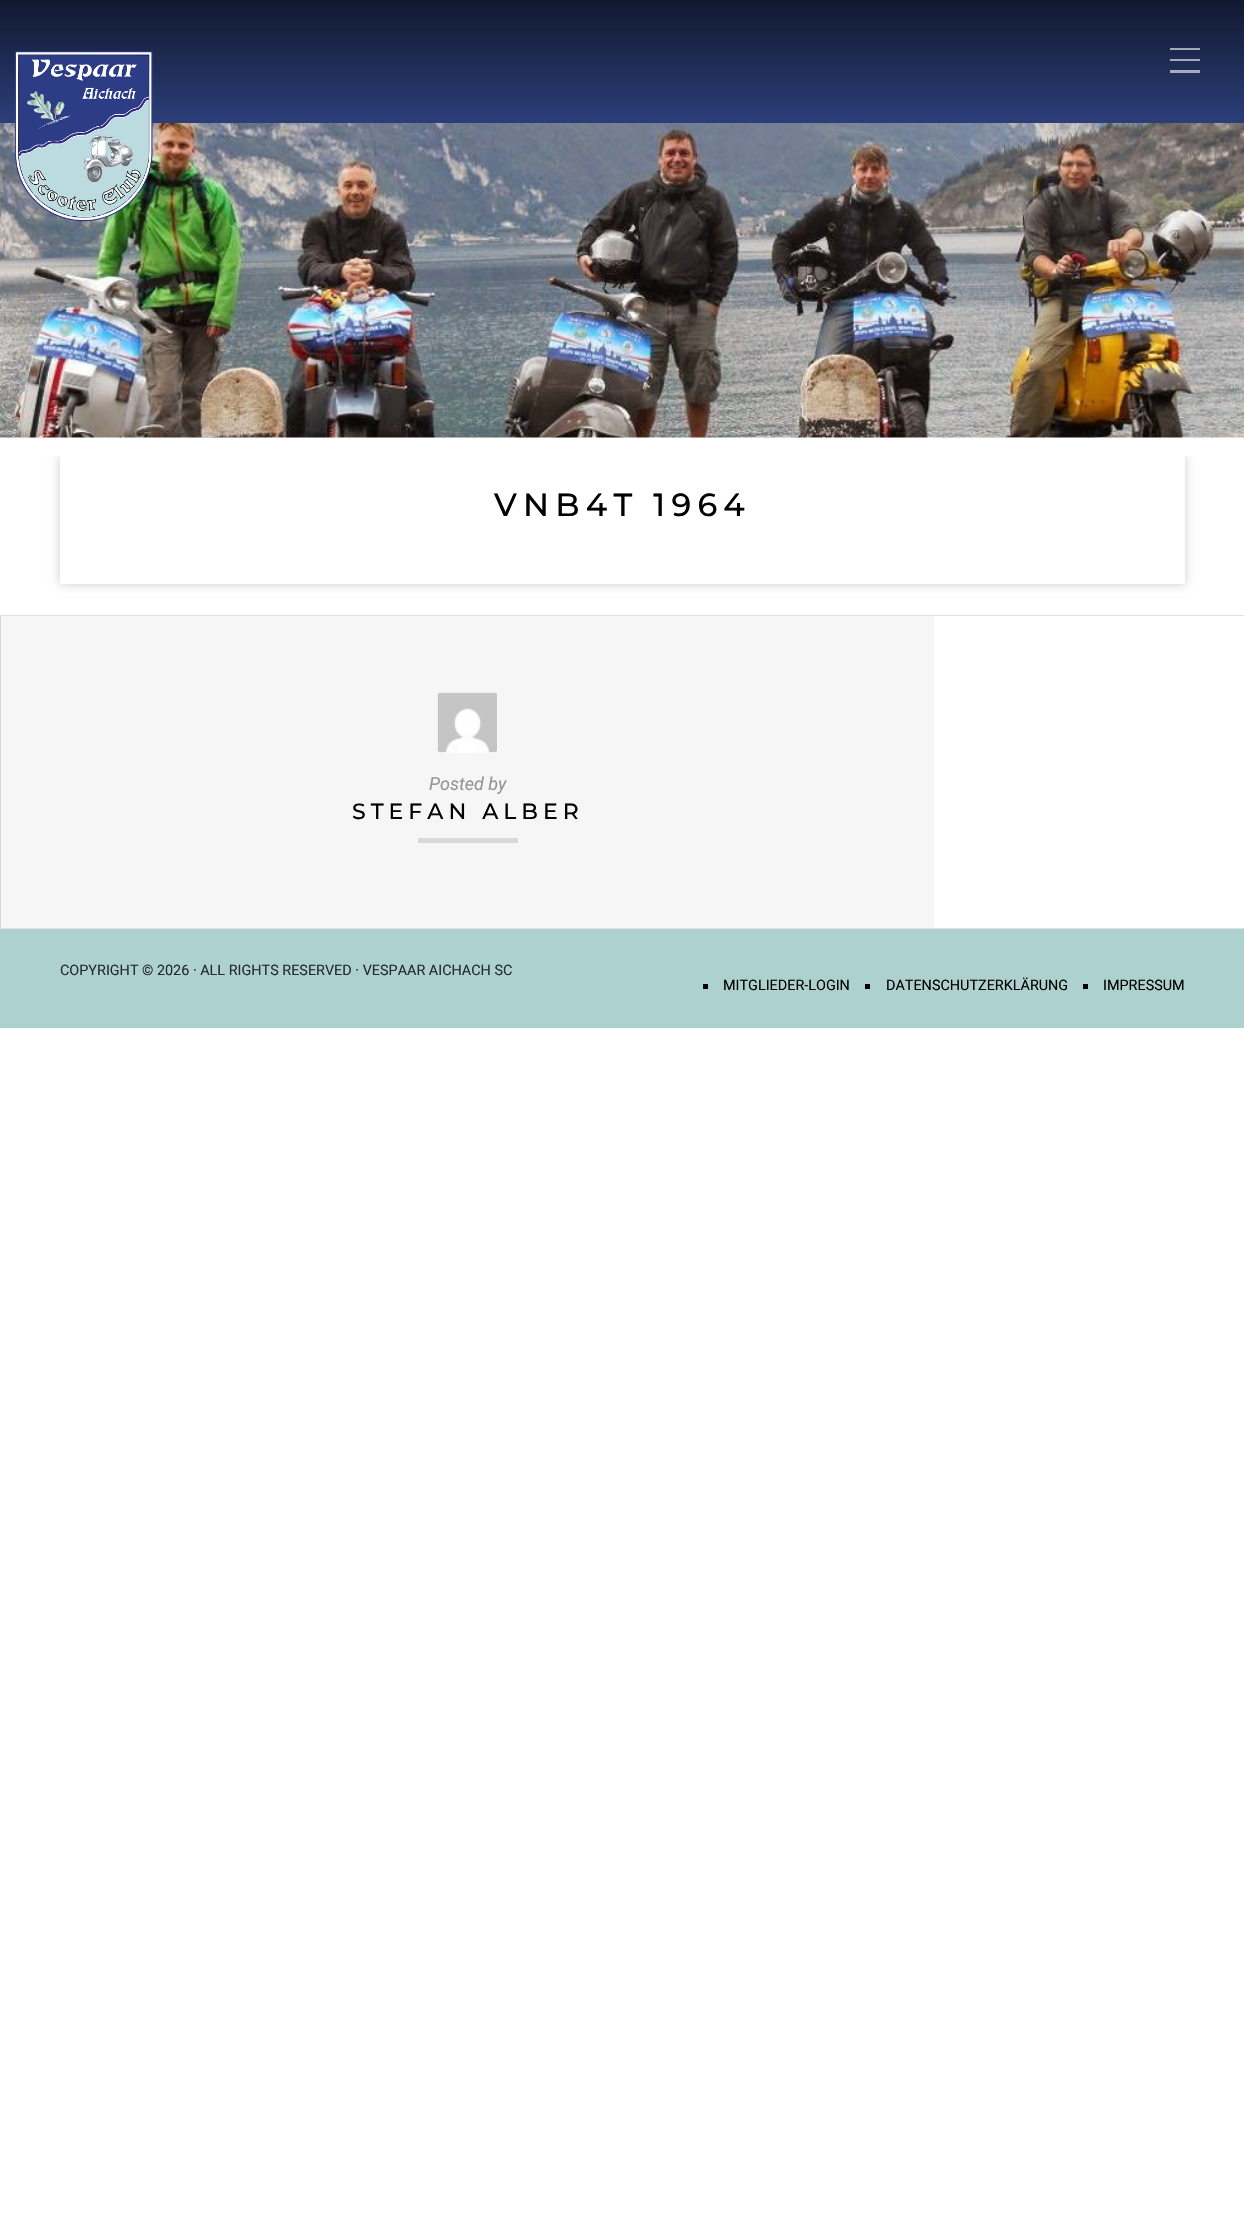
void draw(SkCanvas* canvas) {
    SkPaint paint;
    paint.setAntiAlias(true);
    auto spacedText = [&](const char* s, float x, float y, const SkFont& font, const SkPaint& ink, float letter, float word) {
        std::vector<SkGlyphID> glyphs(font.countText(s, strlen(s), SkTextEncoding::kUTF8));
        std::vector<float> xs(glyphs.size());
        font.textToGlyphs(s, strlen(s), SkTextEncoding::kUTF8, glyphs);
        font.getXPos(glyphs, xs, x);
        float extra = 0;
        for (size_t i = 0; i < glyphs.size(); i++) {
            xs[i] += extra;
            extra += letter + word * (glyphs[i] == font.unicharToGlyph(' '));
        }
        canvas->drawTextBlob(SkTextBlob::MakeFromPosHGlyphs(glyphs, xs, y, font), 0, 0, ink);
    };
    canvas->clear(0xFFFFFFFF);
    {
        const SkColor colors[] = {0xFF111930, 0xFF2B3E78};
        const float stops[] = {0, 1};
        const SkPoint ends[] = {{623, 0}, {623, 123}};
        paint.setShader(SkGradientShader::MakeLinear(ends, colors, stops, 2, SkTileMode::kClamp));
        paint.setAlpha(255);
    }
    canvas->drawRect(SkRect::MakeXYWH(0, 0, 1244, 123), paint);
    canvas->drawImageRect(SkImages::DeferredFromEncodedData(SkData::MakeFromFileName("img2.png")), SkRect::MakeXYWH(0, 123, 1244, 315), SkSamplingOptions());
    canvas->drawImageRect(SkImages::DeferredFromEncodedData(SkData::MakeFromFileName("img1.png")), SkRect::MakeXYWH(15, 51, 138, 171), SkSamplingOptions());
    paint.setShader(nullptr);
    paint.setColor(0xFFA4A9B8);
    canvas->drawRect(SkRect::MakeXYWH(1170, 48, 30, 2), paint);
    paint.setColor(0xFFA5AABA);
    canvas->drawRect(SkRect::MakeXYWH(1170, 59, 30, 2), paint);
    paint.setColor(0xFFA6ACBD);
    canvas->drawRect(SkRect::MakeXYWH(1170, 70, 30, 3), paint);
    canvas->save();
    canvas->clipRect(SkRect::MakeXYWH(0, 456, 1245, 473));
    canvas->clipPath(SkPathBuilder(SkPathFillType::kEvenOdd).moveTo(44, 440).lineTo(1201, 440).lineTo(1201, 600).lineTo(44, 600).close().moveTo(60, 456).lineTo(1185, 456).lineTo(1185, 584).lineTo(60, 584).close().detach(), true);
    paint.setColor(0x33000000);
    paint.setMaskFilter(SkMaskFilter::MakeBlur(kNormal_SkBlurStyle, 5));
    canvas->drawRect(SkRect::MakeXYWH(60, 456, 1125, 128), paint);
    paint.setMaskFilter(nullptr);
    canvas->restore();
    SkFont font1(fontMgr->matchFamilyStyle("Montserrat", SkFontStyle(500, SkFontStyle::kNormal_Width, SkFontStyle::kUpright_Slant)), 32);
    font1.setSubpixel(true);
    paint.setColor(0xFF000000);
    spacedText("VNB4T 1964", 494, 516, font1, paint, 6.25f, 0);
    paint.setColor(0xFFE0E0E0);
    canvas->drawRect(SkRect::MakeXYWH(0, 615, 1244, 1), paint);
    canvas->drawRect(SkRect::MakeXYWH(0, 928, 1244, 1), paint);
    paint.setColor(0xFFF6F6F6);
    canvas->drawRect(SkRect::MakeXYWH(1, 616, 933, 312), paint);
    paint.setColor(0xFFD8D8D8);
    canvas->drawRect(SkRect::MakeXYWH(0, 616, 1, 312), paint);
    paint.setColor(0xFFFFFFFF);
    canvas->drawRoundRect(SkRect::MakeXYWH(438, 693, 60, 60), 4, 4, paint);
    canvas->drawImageRect(SkImages::DeferredFromEncodedData(SkData::MakeFromFileName("img3.png")), SkRect::MakeXYWH(437, 692, 61, 61), SkSamplingOptions());
    SkFont font2(fontMgr->matchFamilyStyle("Roboto", SkFontStyle::Italic()), 18);
    font2.setSubpixel(true);
    paint.setColor(0xFF949494);
    canvas->drawString("Posted by", 429, 790, font2, paint);
    SkFont font3(fontMgr->matchFamilyStyle("Montserrat", SkFontStyle(500, SkFontStyle::kNormal_Width, SkFontStyle::kUpright_Slant)), 22);
    font3.setSubpixel(true);
    paint.setColor(0xFF000000);
    spacedText("STEFAN ALBER", 352, 819, font3, paint, 5, 0);
    paint.setColor(0xFFD8D8D8);
    canvas->drawRect(SkRect::MakeXYWH(418, 838, 100, 5), paint);
    paint.setColor(0xFFADD1CF);
    canvas->drawRect(SkRect::MakeXYWH(0, 929, 1244, 99), paint);
    SkFont font4(fontMgr->matchFamilyStyle("Roboto", SkFontStyle::Normal()), 14.4f);
    font4.setSubpixel(true);
    paint.setColor(0xFF242B2B);
    canvas->drawString("COPYRIGHT © 2026 · ALL RIGHTS RESERVED · VESPAAR AICHACH SC", 60, 975, font4, paint);
    paint.setColor(0xFF020202);
    canvas->drawRect(SkRect::MakeXYWH(703, 984, 5, 5), paint);
    paint.setColor(0xFF000000);
    canvas->drawString("MITGLIEDER-LOGIN", 723, 990, font4, paint);
    paint.setColor(0xFF020202);
    canvas->drawRect(SkRect::MakeXYWH(865, 984, 5, 5), paint);
    paint.setColor(0xFF000000);
    canvas->drawString("DATENSCHUTZERKLÄRUNG", 886, 990, font4, paint);
    paint.setColor(0xFF020202);
    canvas->drawRect(SkRect::MakeXYWH(1083, 984, 5, 5), paint);
    paint.setColor(0xFF000000);
    canvas->drawString("IMPRESSUM", 1103, 990, font4, paint);
}
